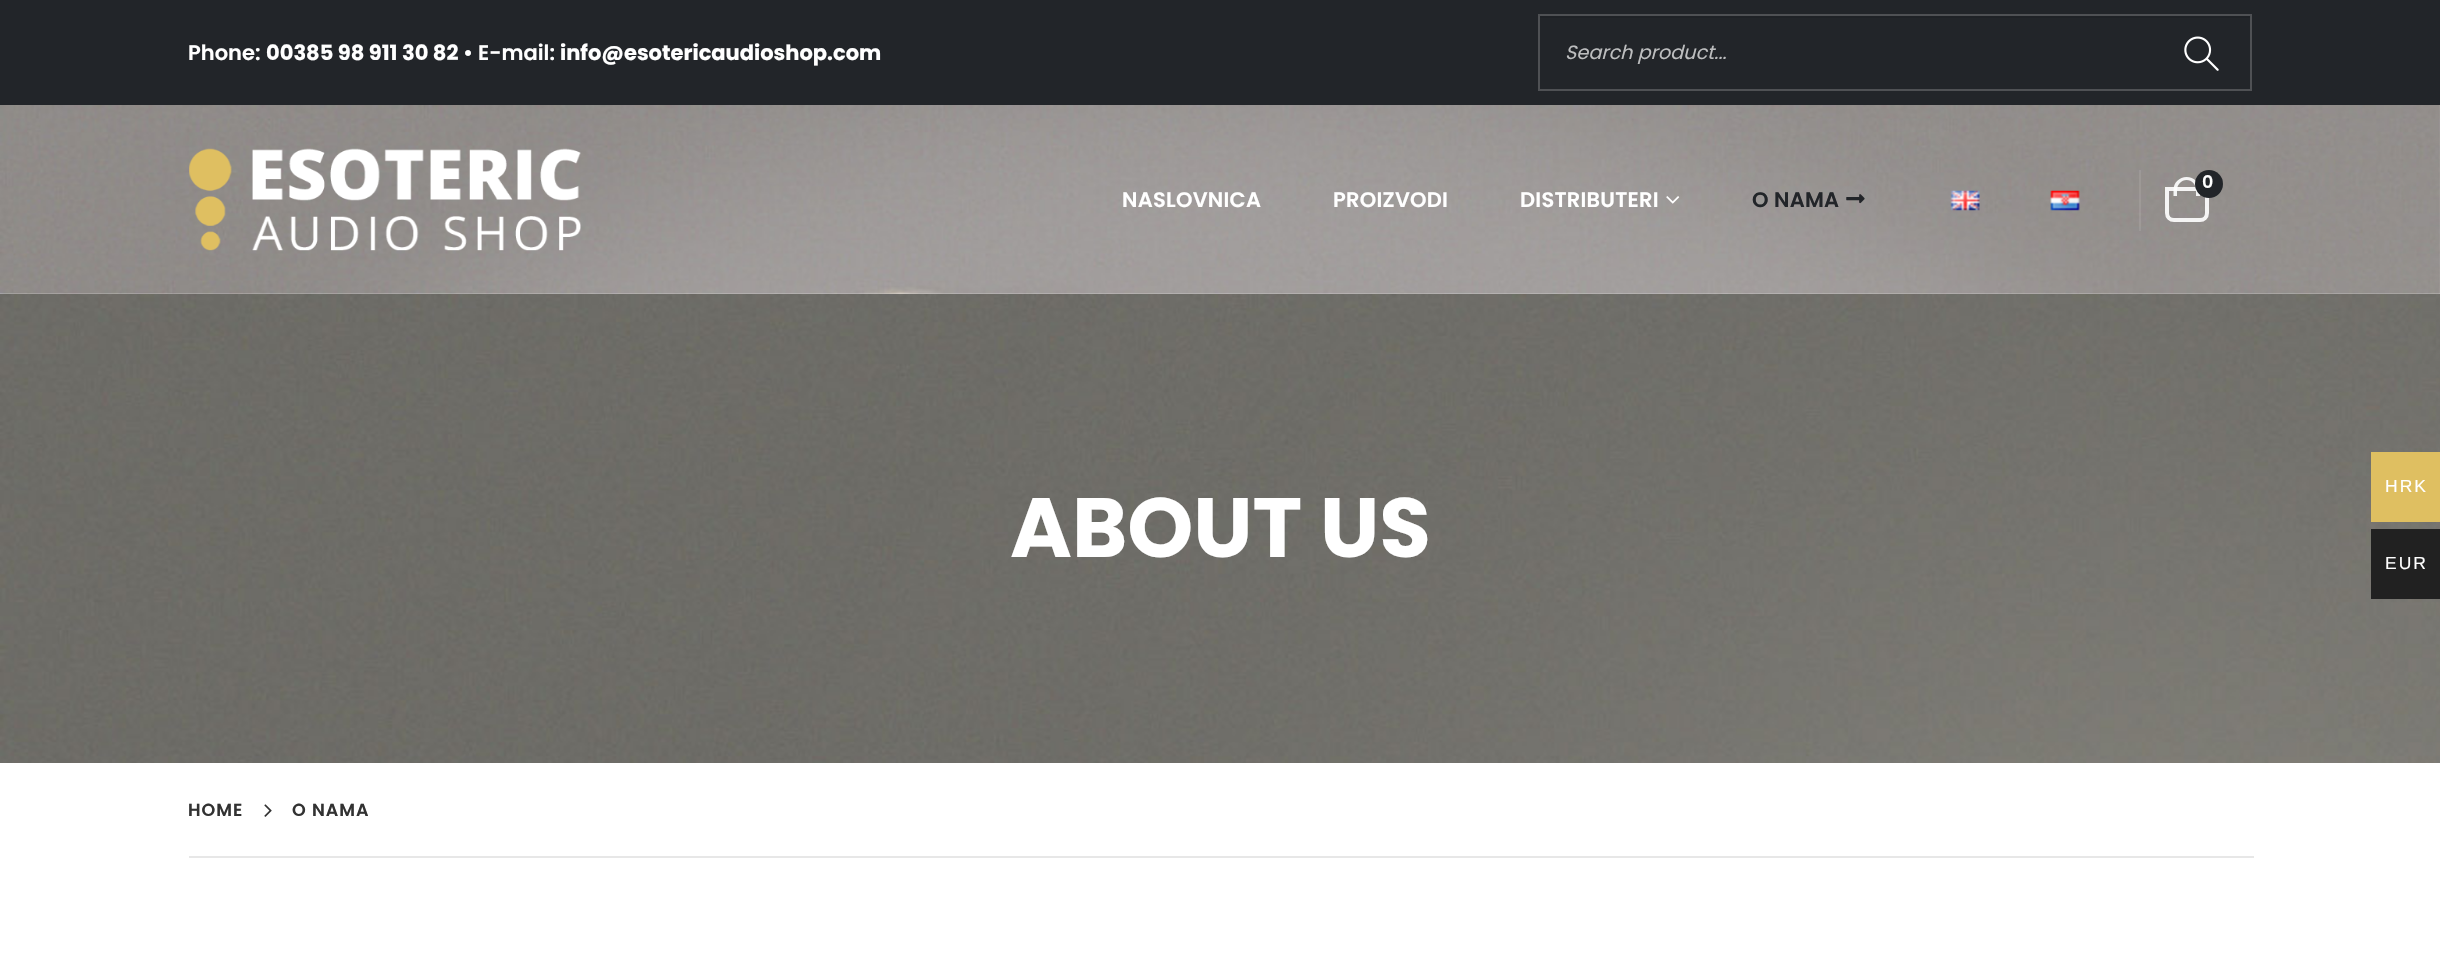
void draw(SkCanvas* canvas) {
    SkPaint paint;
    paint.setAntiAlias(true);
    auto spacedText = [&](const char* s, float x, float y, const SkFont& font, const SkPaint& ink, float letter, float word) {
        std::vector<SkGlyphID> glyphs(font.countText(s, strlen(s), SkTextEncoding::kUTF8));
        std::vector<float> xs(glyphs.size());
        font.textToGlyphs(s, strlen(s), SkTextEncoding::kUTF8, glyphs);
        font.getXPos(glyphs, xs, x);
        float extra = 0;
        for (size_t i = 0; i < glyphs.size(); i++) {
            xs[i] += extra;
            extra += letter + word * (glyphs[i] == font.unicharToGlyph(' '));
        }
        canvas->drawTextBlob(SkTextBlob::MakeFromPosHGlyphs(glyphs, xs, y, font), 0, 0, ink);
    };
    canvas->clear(0xFFFFFFFF);
    paint.setColor(0xFF222529);
    canvas->drawRect(SkRect::MakeXYWH(0, 0, 2440, 105), paint);
    SkFont font1(fontMgr->matchFamilyStyle("Poppins", SkFontStyle(600, SkFontStyle::kNormal_Width, SkFontStyle::kUpright_Slant)), 21);
    font1.setSubpixel(true);
    paint.setColor(0xFFFFFFFF);
    canvas->drawString("Phone:", 188, 60, font1, paint);
    SkFont font2(fontMgr->matchFamilyStyle("Poppins", SkFontStyle::Bold()), 21);
    font2.setSubpixel(true);
    canvas->drawString("00385 98 911 30 82", 266, 60, font2, paint);
    canvas->drawString("• E-mail:", 463, 60, font1, paint);
    canvas->drawString("info@esotericaudioshop.com", 560, 60, font2, paint);
    paint.setColor(0xFF1F2226);
    canvas->drawRect(SkRect::MakeXYWH(1540, 16, 711, 2), paint);
    paint.setStyle(SkPaint::kStroke_Style);
    paint.setStrokeWidth(2);
    paint.setColor(0x33FFFFFF);
    canvas->drawRect(SkRect::MakeXYWH(1539, 15, 712, 75), paint);
    SkFont font3(fontMgr->matchFamilyStyle("Poppins", SkFontStyle::Italic()), 19.25f);
    font3.setSubpixel(true);
    paint.setStyle(SkPaint::kFill_Style);
    paint.setColor(0xFFBDBEBF);
    canvas->drawString("Search product...", 1565, 59, font3, paint);
    canvas->drawImageRect(SkImages::DeferredFromEncodedData(SkData::MakeFromFileName("img1.png")), SkRect::MakeXYWH(2184, 36, 35, 35), SkSamplingOptions());
    canvas->drawImageRect(SkImages::DeferredFromEncodedData(SkData::MakeFromFileName("img2.png")), SkRect::MakeXYWH(0, 105, 2440, 189), SkSamplingOptions());
    canvas->drawImageRect(SkImages::DeferredFromEncodedData(SkData::MakeFromFileName("img3.png")), SkRect::MakeXYWH(189, 148, 392, 103), SkSamplingOptions());
    paint.setColor(0x17FFFFFF);
    canvas->drawRect(SkRect::MakeXYWH(2139, 170, 2, 61), paint);
    paint.setStyle(SkPaint::kStroke_Style);
    paint.setStrokeWidth(4);
    paint.setColor(0xE6FFFFFF);
    canvas->drawPath(SkPathBuilder().moveTo(2167, 189).lineTo(2207, 189).lineTo(2207, 213).cubicTo(2207, 217, 2204, 220, 2200, 220).lineTo(2174, 220).cubicTo(2170, 220, 2167, 217, 2167, 213).close().detach(), paint);
    paint.setStyle(SkPaint::kFill_Style);
    canvas->drawPath(SkPathBuilder(SkPathFillType::kEvenOdd).moveTo(2186.5f, 177).cubicTo(2194, 177, 2200, 182.5f, 2200, 190).lineTo(2200, 196).lineTo(2173.5f, 196).lineTo(2173.5f, 190).cubicTo(2173.5f, 182.5f, 2179.5f, 177, 2186.5f, 177).close().moveTo(2186.5f, 180).cubicTo(2192, 180, 2196, 184.5f, 2196, 190).lineTo(2196, 196).lineTo(2177, 196).lineTo(2177, 190).cubicTo(2177, 184.5f, 2181.5f, 180, 2186.5f, 180).close().detach(), paint);
    paint.setColor(0xFF222529);
    canvas->drawCircle(2209, 184, 14, paint);
    SkFont font4(fontMgr->matchFamilyStyle("Poppins", SkFontStyle(600, SkFontStyle::kNormal_Width, SkFontStyle::kUpright_Slant)), 17.5f);
    font4.setSubpixel(true);
    paint.setColor(0xFFFFFFFF);
    canvas->drawString("0", 2202, 188, font4, paint);
    spacedText("NASLOVNICA", 1122, 207, font1, paint, 0.25f, 0);
    spacedText("PROIZVODI", 1333, 207, font1, paint, 0.25f, 0);
    spacedText("DISTRIBUTERI", 1520, 207, font1, paint, 0.25f, 0);
    canvas->drawImageRect(SkImages::DeferredFromEncodedData(SkData::MakeFromFileName("img4.png")), SkRect::MakeXYWH(1666, 196, 14, 8), SkSamplingOptions());
    paint.setColor(0xFF222529);
    spacedText("O NAMA", 1752, 207, font1, paint, 0.25f, 0);
    canvas->drawImageRect(SkImages::DeferredFromEncodedData(SkData::MakeFromFileName("img5.png")), SkRect::MakeXYWH(1846, 194, 19, 10), SkSamplingOptions());
    canvas->drawImageRect(SkImages::DeferredFromEncodedData(SkData::MakeFromFileName("img6.png")), SkRect::MakeXYWH(1950, 190, 30, 21), SkSamplingOptions());
    canvas->drawImageRect(SkImages::DeferredFromEncodedData(SkData::MakeFromFileName("img7.png")), SkRect::MakeXYWH(2050, 190, 30, 21), SkSamplingOptions());
    canvas->drawImageRect(SkImages::DeferredFromEncodedData(SkData::MakeFromFileName("img8.png")), SkRect::MakeXYWH(0, 294, 2440, 469), SkSamplingOptions());
    SkFont font5(fontMgr->matchFamilyStyle("Poppins", SkFontStyle::Bold()), 84);
    font5.setSubpixel(true);
    paint.setColor(0xFFFFFFFF);
    canvas->drawString("ABOUT US", 1010, 557, font5, paint);
    paint.setColor(0xFF323232);
    spacedText("HOME", 188, 816, font4, paint, 1, 0);
    canvas->drawImageRect(SkImages::DeferredFromEncodedData(SkData::MakeFromFileName("img9.png")), SkRect::MakeXYWH(264, 804, 8, 13), SkSamplingOptions());
    spacedText("O NAMA", 292, 816, font4, paint, 1, 0);
    paint.setColor(0xFFE7E7E7);
    canvas->drawRect(SkRect::MakeXYWH(189, 856, 2065, 2), paint);
    paint.setColor(0xFFDFBF61);
    canvas->drawRect(SkRect::MakeXYWH(2371, 452, 69, 70), paint);
    SkFont font6(fontMgr->matchFamilyStyle("Liberation Sans", SkFontStyle::Normal()), 17.5f);
    font6.setSubpixel(true);
    paint.setColor(0xFFFFFFFF);
    spacedText("HRK", 2385, 492, font6, paint, 2, 0);
    paint.setColor(0xFF212121);
    canvas->drawRect(SkRect::MakeXYWH(2371, 529, 69, 70), paint);
    paint.setColor(0xFFFFFFFF);
    spacedText("EUR", 2385, 569, font6, paint, 2, 0);
}
